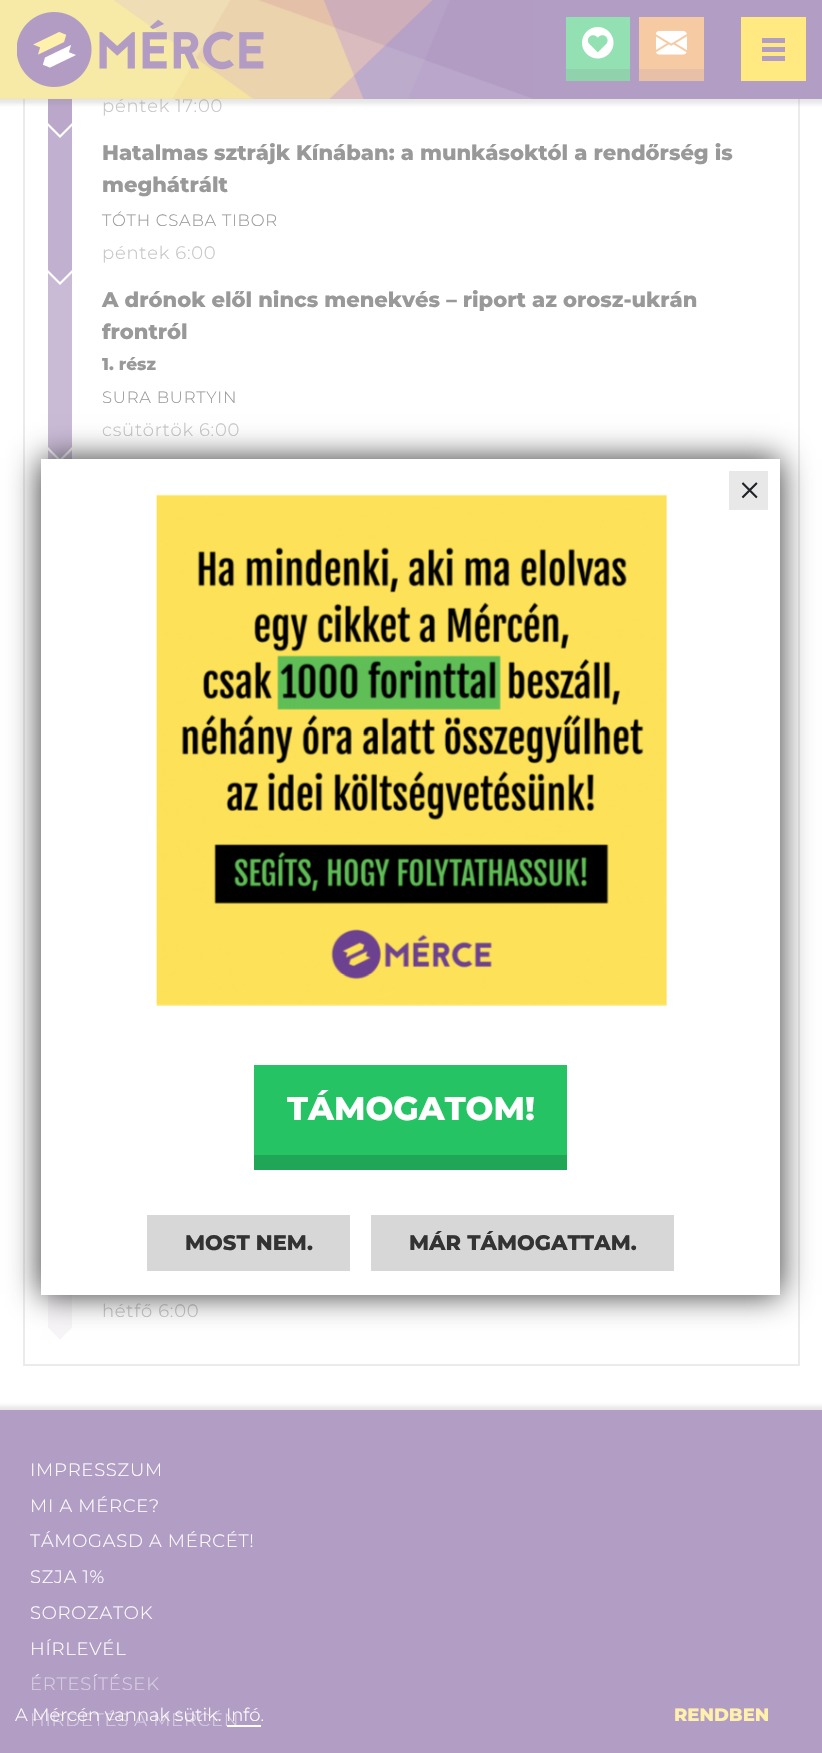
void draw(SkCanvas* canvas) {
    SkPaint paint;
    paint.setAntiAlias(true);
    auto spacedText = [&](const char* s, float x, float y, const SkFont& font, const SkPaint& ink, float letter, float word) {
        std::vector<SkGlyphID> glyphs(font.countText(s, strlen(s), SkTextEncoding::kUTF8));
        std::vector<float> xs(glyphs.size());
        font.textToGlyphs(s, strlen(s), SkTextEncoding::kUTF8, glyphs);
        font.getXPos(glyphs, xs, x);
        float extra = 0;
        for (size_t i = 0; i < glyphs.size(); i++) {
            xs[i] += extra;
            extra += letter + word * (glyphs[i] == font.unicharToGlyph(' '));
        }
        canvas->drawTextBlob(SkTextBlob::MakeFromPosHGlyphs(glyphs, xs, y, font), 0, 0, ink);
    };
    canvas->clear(0xFFFFFFFF);
    SkFont font1(fontMgr->matchFamilyStyle("Montserrat", SkFontStyle(300, SkFontStyle::kNormal_Width, SkFontStyle::kUpright_Slant)), 18);
    font1.setSubpixel(true);
    paint.setColor(0xFFC5C5C5);
    spacedText("péntek 17:00", 102, 112, font1, paint, 0.75f, 0);
    paint.setColor(0xFFB29DC4);
    canvas->drawRect(SkRect::MakeXYWH(0, 0, 822, 99), paint);
    canvas->drawImageRect(SkImages::DeferredFromEncodedData(SkData::MakeFromFileName("img1.png")), SkRect::MakeXYWH(0, 0, 533, 99), SkSamplingOptions());
    paint.setColor(0xFFEBEBEB);
    canvas->drawRect(SkRect::MakeXYWH(798, 99, 2, 1266), paint);
    canvas->drawRect(SkRect::MakeXYWH(23, 1364, 777, 2), paint);
    canvas->drawRect(SkRect::MakeXYWH(23, 99, 2, 1266), paint);
    paint.setColor(0xFFBAA7CA);
    canvas->drawRect(SkRect::MakeXYWH(48, 99, 24, 24), paint);
    canvas->save();
    canvas->clipRect(SkRect::MakeXYWH(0, 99, 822, 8));
    paint.setColor(0x33808080);
    paint.setMaskFilter(SkMaskFilter::MakeBlur(kNormal_SkBlurStyle, 2));
    canvas->drawRect(SkRect::MakeXYWH(-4, -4, 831, 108), paint);
    paint.setMaskFilter(nullptr);
    canvas->restore();
    canvas->drawImageRect(SkImages::DeferredFromEncodedData(SkData::MakeFromFileName("img2.png")), SkRect::MakeXYWH(17, 12, 247, 75), SkSamplingOptions());
    paint.setColor(0xFF90D2AB);
    canvas->drawRect(SkRect::MakeXYWH(566, 69, 64, 12), paint);
    paint.setColor(0xFF93E1B2);
    canvas->drawRect(SkRect::MakeXYWH(566, 17, 64, 52), paint);
    canvas->drawImageRect(SkImages::DeferredFromEncodedData(SkData::MakeFromFileName("img3.png")), SkRect::MakeXYWH(582, 27, 32, 32), SkSamplingOptions());
    paint.setColor(0xFFE8C0A8);
    canvas->drawRect(SkRect::MakeXYWH(639, 69, 65, 12), paint);
    paint.setColor(0xFFF6CAA2);
    canvas->drawRect(SkRect::MakeXYWH(639, 17, 65, 52), paint);
    canvas->drawImageRect(SkImages::DeferredFromEncodedData(SkData::MakeFromFileName("img4.png")), SkRect::MakeXYWH(656, 30, 31, 25), SkSamplingOptions());
    paint.setColor(0xFFFFE980);
    canvas->drawRect(SkRect::MakeXYWH(741, 17, 65, 64), paint);
    paint.setColor(0xFFB29DC4);
    canvas->drawRect(SkRect::MakeXYWH(762, 47, 23, 5), paint);
    canvas->drawRect(SkRect::MakeXYWH(762, 38, 23, 5), paint);
    canvas->drawRect(SkRect::MakeXYWH(762, 56, 23, 5), paint);
    paint.setColor(0xFFBAA7CA);
    canvas->drawPath(SkPathBuilder().moveTo(48, 123).lineTo(72, 123).lineTo(60, 135).close().detach(), paint);
    paint.setColor(0xFFC1B0D0);
    canvas->drawRect(SkRect::MakeXYWH(48, 138, 24, 132), paint);
    canvas->drawPath(SkPathBuilder().moveTo(72, 126).lineTo(72, 138).lineTo(60, 138).close().moveTo(48, 138).lineTo(48, 126).lineTo(60, 138).close().detach(), paint);
    SkFont font2(fontMgr->matchFamilyStyle("Montserrat", SkFontStyle(800, SkFontStyle::kNormal_Width, SkFontStyle::kUpright_Slant)), 21);
    font2.setSubpixel(true);
    paint.setColor(0xFF999999);
    canvas->drawString("Hatalmas sztrájk Kínában: a munkásoktól a rendőrség is", 102, 160, font2, paint);
    canvas->drawString("meghátrált", 102, 192, font2, paint);
    SkFont font3(fontMgr->matchFamilyStyle("Montserrat", SkFontStyle(300, SkFontStyle::kNormal_Width, SkFontStyle::kUpright_Slant)), 16.5f);
    font3.setSubpixel(true);
    spacedText("TÓTH CSABA TIBOR", 102, 226, font3, paint, 0.75f, 0);
    paint.setColor(0xFFC5C5C5);
    spacedText("péntek 6:00", 102, 259, font1, paint, 0.75f, 0);
    paint.setColor(0xFFC1B0D0);
    canvas->drawPath(SkPathBuilder().moveTo(48, 270).lineTo(72, 270).lineTo(60, 282).close().detach(), paint);
    paint.setColor(0xFFC9BAD6);
    canvas->drawRect(SkRect::MakeXYWH(48, 285, 24, 162), paint);
    canvas->drawPath(SkPathBuilder().moveTo(72, 273).lineTo(72, 285).lineTo(60, 285).close().moveTo(48, 285).lineTo(48, 273).lineTo(60, 285).close().detach(), paint);
    paint.setColor(0xFF999999);
    canvas->drawString("A drónok elől nincs menekvés – riport az orosz-ukrán", 102, 307, font2, paint);
    canvas->drawString("frontról", 102, 339, font2, paint);
    SkFont font4(fontMgr->matchFamilyStyle("Montserrat", SkFontStyle(800, SkFontStyle::kNormal_Width, SkFontStyle::kUpright_Slant)), 17);
    font4.setSubpixel(true);
    canvas->drawString("1. rész", 102, 370, font4, paint);
    spacedText("SURA BURTYIN", 102, 403, font3, paint, 0.75f, 0);
    paint.setColor(0xFFC5C5C5);
    spacedText("csütörtök 6:00", 102, 436, font1, paint, 0.75f, 0);
    paint.setColor(0xFFC9BAD6);
    canvas->drawPath(SkPathBuilder().moveTo(48, 447).lineTo(72, 447).lineTo(60, 459).close().detach(), paint);
    paint.setColor(0xFFD1C4DC);
    canvas->drawPath(SkPathBuilder().moveTo(72, 450).lineTo(72, 462).lineTo(60, 462).close().moveTo(48, 462).lineTo(48, 450).lineTo(60, 462).close().detach(), paint);
    paint.setColor(0xFFF8F5F9);
    canvas->drawRect(SkRect::MakeXYWH(48, 1295, 24, 33), paint);
    paint.setColor(0xFFC5C5C5);
    spacedText("hétfő 6:00", 102, 1317, font1, paint, 0.75f, 0);
    paint.setColor(0xFFF8F5F9);
    canvas->drawPath(SkPathBuilder().moveTo(48, 1327.5f).lineTo(72, 1327.5f).lineTo(60, 1339.5f).close().detach(), paint);
    paint.setColor(0xFF333333);
    paint.setMaskFilter(SkMaskFilter::MakeBlur(kNormal_SkBlurStyle, 15));
    canvas->drawRect(SkRect::MakeXYWH(41, 459, 739, 836), paint);
    paint.setMaskFilter(nullptr);
    paint.setColor(0xFFFFFFFF);
    canvas->drawRect(SkRect::MakeXYWH(41, 459, 739, 836), paint);
    paint.setColor(0xFFE8E8E8);
    canvas->drawRect(SkRect::MakeXYWH(729, 471, 39, 39), paint);
    SkFont font5(fontMgr->matchFamilyStyle("Montserrat", SkFontStyle(300, SkFontStyle::kNormal_Width, SkFontStyle::kUpright_Slant)), 48);
    font5.setSubpixel(true);
    paint.setColor(0xFF212529);
    canvas->drawString("×", 736, 507, font5, paint);
    canvas->drawImageRect(SkImages::DeferredFromEncodedData(SkData::MakeFromFileName("img5.png")), SkRect::MakeXYWH(156, 494, 511, 512), SkSamplingOptions());
    paint.setColor(0xFF21A556);
    canvas->drawRect(SkRect::MakeXYWH(254, 1155, 313, 15), paint);
    paint.setColor(0xFF26C365);
    canvas->drawRect(SkRect::MakeXYWH(254, 1065, 313, 90), paint);
    SkFont font6(fontMgr->matchFamilyStyle("Montserrat", SkFontStyle(800, SkFontStyle::kNormal_Width, SkFontStyle::kUpright_Slant)), 33);
    font6.setSubpixel(true);
    paint.setColor(0xFFFFFFFF);
    canvas->drawString("TÁMOGATOM!", 287, 1120, font6, paint);
    paint.setColor(0xFFD7D7D7);
    canvas->drawRect(SkRect::MakeXYWH(147, 1215, 203, 56), paint);
    paint.setColor(0xFF333333);
    canvas->drawString("MOST NEM.", 185, 1250, font2, paint);
    paint.setColor(0xFFD7D7D7);
    canvas->drawRect(SkRect::MakeXYWH(371, 1215, 303, 56), paint);
    paint.setColor(0xFF333333);
    canvas->drawString("MÁR TÁMOGATTAM.", 409, 1250, font2, paint);
    paint.setColor(0x33808080);
    paint.setMaskFilter(SkMaskFilter::MakeBlur(kNormal_SkBlurStyle, 2));
    canvas->drawRect(SkRect::MakeXYWH(-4, 1406, 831, 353), paint);
    paint.setMaskFilter(nullptr);
    paint.setColor(0xFFB29DC4);
    canvas->drawRect(SkRect::MakeXYWH(0, 1410, 822, 343), paint);
    paint.setColor(0xFFFFFFFF);
    spacedText("IMPRESSZUM", 30, 1476, font1, paint, 0.75f, 0);
    spacedText("MI A MÉRCE?", 30, 1512, font1, paint, 0.75f, 0);
    spacedText("TÁMOGASD A MÉRCÉT!", 30, 1547, font1, paint, 0.75f, 0);
    spacedText("SZJA 1%", 30, 1583, font1, paint, 0.75f, 0);
    spacedText("SOROZATOK", 30, 1619, font1, paint, 0.75f, 0);
    spacedText("HÍRLEVÉL", 30, 1655, font1, paint, 0.75f, 0);
    spacedText("ÉRTESÍTÉSEK", 30, 1690, font1, paint, 0.75f, 0);
    spacedText("HIRDETÉS A MÉRCÉN", 30, 1726, font1, paint, 0.75f, 0);
    paint.setColor(0x80B29DC4);
    canvas->drawRect(SkRect::MakeXYWH(32, 1677, 205, 50), paint);
    paint.setColor(0xFFFFFFFF);
    canvas->drawString("A Mércén vannak sütik. Infó.", 15, 1721, font1, paint);
    canvas->drawRect(SkRect::MakeXYWH(227, 1725, 34, 2), paint);
    SkFont font7(fontMgr->matchFamilyStyle("Montserrat", SkFontStyle(800, SkFontStyle::kNormal_Width, SkFontStyle::kUpright_Slant)), 18);
    font7.setSubpixel(true);
    paint.setColor(0xFFFFF0AD);
    canvas->drawString("RENDBEN", 674, 1721, font7, paint);
}
